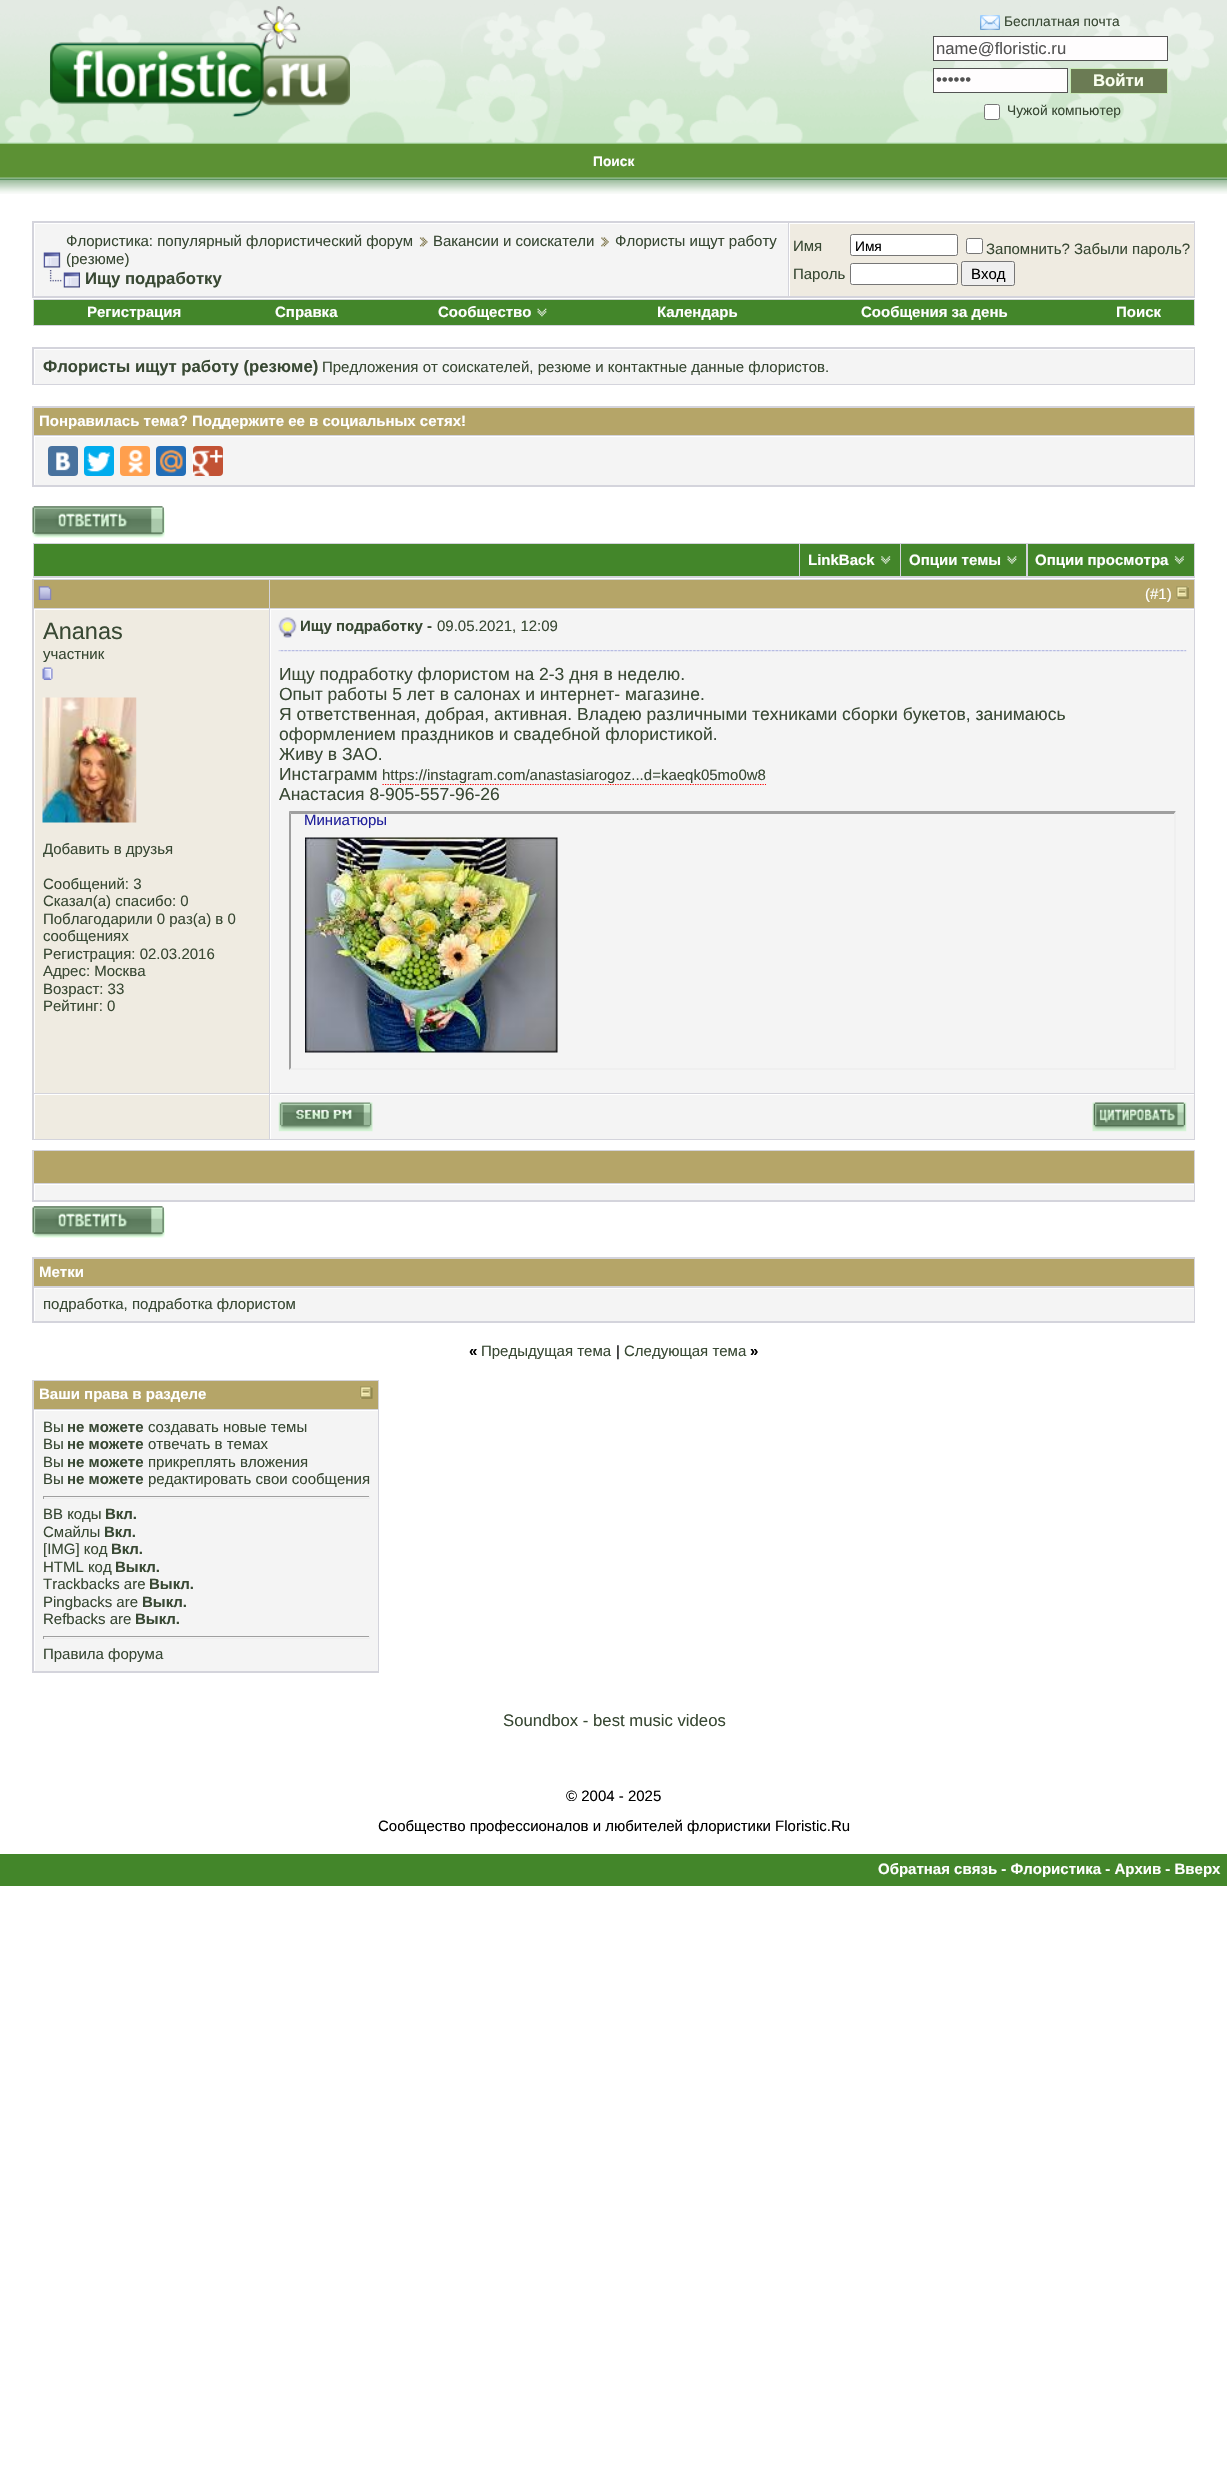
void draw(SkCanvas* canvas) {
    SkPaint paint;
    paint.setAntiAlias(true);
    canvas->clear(0xFFFFFFFF);
    canvas->drawImageRect(SkImages::DeferredFromEncodedData(SkData::MakeFromFileName("img1.png")), SkRect::MakeXYWH(0, 0, 1227, 194), SkSamplingOptions());
    canvas->drawImageRect(SkImages::DeferredFromEncodedData(SkData::MakeFromFileName("img2.png")), SkRect::MakeXYWH(50, 6, 300, 111), SkSamplingOptions());
    canvas->drawImageRect(SkImages::DeferredFromEncodedData(SkData::MakeFromFileName("img3.png")), SkRect::MakeXYWH(980, 15, 20, 15), SkSamplingOptions());
    SkFont font1(fontMgr->matchFamilyStyle("Liberation Sans", SkFontStyle::Normal()), 13.75f);
    font1.setSubpixel(true);
    paint.setColor(0xFF394934);
    canvas->drawString("Бесплатная почта", 1004, 26, font1, paint);
    paint.setColor(0xFFFFFDFE);
    canvas->drawRect(SkRect::MakeXYWH(933.5f, 36.5f, 234, 24), paint);
    paint.setStyle(SkPaint::kStroke_Style);
    paint.setStrokeWidth(1);
    paint.setColor(0xFF535353);
    canvas->drawRect(SkRect::MakeXYWH(933.5f, 36.5f, 234, 24), paint);
    SkFont font2(fontMgr->matchFamilyStyle("Liberation Sans", SkFontStyle::Normal()), 16.7f);
    font2.setSubpixel(true);
    paint.setStyle(SkPaint::kFill_Style);
    canvas->drawString("name@floristic.ru", 936, 54, font2, paint);
    paint.setColor(0xFFFFFDFE);
    canvas->drawRect(SkRect::MakeXYWH(933.5f, 68.5f, 134, 24), paint);
    paint.setStyle(SkPaint::kStroke_Style);
    paint.setColor(0xFF535353);
    canvas->drawRect(SkRect::MakeXYWH(933.5f, 68.5f, 134, 24), paint);
    paint.setStyle(SkPaint::kFill_Style);
    canvas->drawString("••••••", 936, 85, font2, paint);
    paint.setColor(0xFF6B7B54);
    canvas->drawRect(SkRect::MakeXYWH(1070.5f, 68.5f, 97, 25), paint);
    paint.setStyle(SkPaint::kStroke_Style);
    paint.setColor(0xFFC7EAB4);
    canvas->drawRect(SkRect::MakeXYWH(1070.5f, 68.5f, 97, 25), paint);
    SkFont font3(fontMgr->matchFamilyStyle("Liberation Sans", SkFontStyle::Bold()), 16.7f);
    font3.setSubpixel(true);
    paint.setStyle(SkPaint::kFill_Style);
    paint.setColor(0xFFFAFFEF);
    canvas->drawString("Войти", 1093, 86, font3, paint);
    paint.setColor(0xFFFFFFFF);
    canvas->drawRoundRect(SkRect::MakeXYWH(984.5f, 104.5f, 15, 15), 2, 2, paint);
    paint.setStyle(SkPaint::kStroke_Style);
    paint.setColor(0xFF767676);
    canvas->drawRoundRect(SkRect::MakeXYWH(984.5f, 104.5f, 15, 15), 2, 2, paint);
    paint.setStyle(SkPaint::kFill_Style);
    paint.setColor(0xFF394934);
    canvas->drawString("Чужой компьютер", 1007, 115, font1, paint);
    SkFont font4(fontMgr->matchFamilyStyle("Liberation Sans", SkFontStyle::Bold()), 13.75f);
    font4.setSubpixel(true);
    paint.setColor(0xFFFFFFFF);
    canvas->drawString("Поиск", 593, 166, font4, paint);
    paint.setColor(0xFFD4D4DC);
    canvas->drawRect(SkRect::MakeXYWH(32, 221, 1163, 77), paint);
    paint.setColor(0xFFF4F4F4);
    canvas->drawRect(SkRect::MakeXYWH(35, 224, 753, 72), paint);
    paint.setColor(0xFFFFFFFF);
    canvas->drawRect(SkRect::MakeXYWH(34, 223, 754, 1), paint);
    canvas->drawRect(SkRect::MakeXYWH(34, 223, 1, 73), paint);
    canvas->drawImageRect(SkImages::DeferredFromEncodedData(SkData::MakeFromFileName("img4.png")), SkRect::MakeXYWH(43, 252, 18, 16), SkSamplingOptions());
    SkFont font5(fontMgr->matchFamilyStyle("Liberation Sans", SkFontStyle::Normal()), 15);
    font5.setSubpixel(true);
    paint.setColor(0xFF394934);
    canvas->drawString("Флористика: популярный флористический форум", 66, 246, font5, paint);
    canvas->drawImageRect(SkImages::DeferredFromEncodedData(SkData::MakeFromFileName("img5.png")), SkRect::MakeXYWH(419, 237, 9, 10), SkSamplingOptions());
    canvas->drawString("Вакансии и соискатели", 433, 246, font5, paint);
    canvas->drawImageRect(SkImages::DeferredFromEncodedData(SkData::MakeFromFileName("img6.png")), SkRect::MakeXYWH(601, 237, 8, 10), SkSamplingOptions());
    canvas->drawString("Флористы ищут работу", 615, 246, font5, paint);
    canvas->drawString("(резюме)", 66, 264, font5, paint);
    canvas->drawImageRect(SkImages::DeferredFromEncodedData(SkData::MakeFromFileName("img7.png")), SkRect::MakeXYWH(49, 270, 31, 18), SkSamplingOptions());
    canvas->drawString("Ищу подработку", 85, 284, font3, paint);
    paint.setColor(0xFFEFEBE1);
    canvas->drawRect(SkRect::MakeXYWH(790, 224, 404, 72), paint);
    paint.setColor(0xFFFFFFFF);
    canvas->drawRect(SkRect::MakeXYWH(789, 223, 405, 1), paint);
    canvas->drawRect(SkRect::MakeXYWH(789, 223, 1, 73), paint);
    paint.setColor(0xFF394934);
    canvas->drawString("Имя", 793, 251, font5, paint);
    paint.setColor(0xFFFFFFFF);
    canvas->drawRoundRect(SkRect::MakeXYWH(850.5f, 234.5f, 107, 21), 2, 2, paint);
    paint.setStyle(SkPaint::kStroke_Style);
    paint.setColor(0xFF767676);
    canvas->drawRoundRect(SkRect::MakeXYWH(850.5f, 234.5f, 107, 21), 2, 2, paint);
    paint.setStyle(SkPaint::kFill_Style);
    paint.setColor(0xFF000000);
    canvas->drawString("Имя", 855, 251, font1, paint);
    paint.setColor(0xFFFFFFFF);
    canvas->drawRoundRect(SkRect::MakeXYWH(966.5f, 238.5f, 16, 15), 2, 2, paint);
    paint.setStyle(SkPaint::kStroke_Style);
    paint.setColor(0xFF767676);
    canvas->drawRoundRect(SkRect::MakeXYWH(966.5f, 238.5f, 16, 15), 2, 2, paint);
    paint.setStyle(SkPaint::kFill_Style);
    paint.setColor(0xFF394934);
    canvas->drawString("Запомнить? Забыли пароль?", 986, 254, font5, paint);
    canvas->drawString("Пароль", 793, 279, font5, paint);
    paint.setColor(0xFFFFFFFF);
    canvas->drawRoundRect(SkRect::MakeXYWH(850.5f, 263.5f, 107, 21), 2, 2, paint);
    paint.setStyle(SkPaint::kStroke_Style);
    paint.setColor(0xFF767676);
    canvas->drawRoundRect(SkRect::MakeXYWH(850.5f, 263.5f, 107, 21), 2, 2, paint);
    paint.setStyle(SkPaint::kFill_Style);
    paint.setColor(0xFFEFEFEF);
    canvas->drawRoundRect(SkRect::MakeXYWH(961.5f, 261.5f, 53, 24), 2, 2, paint);
    paint.setStyle(SkPaint::kStroke_Style);
    paint.setColor(0xFF767676);
    canvas->drawRoundRect(SkRect::MakeXYWH(961.5f, 261.5f, 53, 24), 2, 2, paint);
    paint.setStyle(SkPaint::kFill_Style);
    paint.setColor(0xFF000000);
    canvas->drawString("Вход", 971, 279, font5, paint);
    paint.setColor(0xFFD4D4DC);
    canvas->drawRect(SkRect::MakeXYWH(33, 299, 1162, 27), paint);
    paint.setColor(0xFF43862A);
    canvas->drawRect(SkRect::MakeXYWH(34, 300, 1160, 25), paint);
    SkFont font6(fontMgr->matchFamilyStyle("Liberation Sans", SkFontStyle::Bold()), 15);
    font6.setSubpixel(true);
    paint.setColor(0xFFFFFFFF);
    canvas->drawString("Регистрация", 87, 317, font6, paint);
    canvas->drawString("Справка", 275, 317, font6, paint);
    canvas->drawString("Сообщество", 438, 317, font6, paint);
    canvas->drawImageRect(SkImages::DeferredFromEncodedData(SkData::MakeFromFileName("img8.png")), SkRect::MakeXYWH(537, 308, 10, 9), SkSamplingOptions());
    canvas->drawString("Календарь", 657, 317, font6, paint);
    canvas->drawString("Сообщения за день", 861, 317, font6, paint);
    canvas->drawString("Поиск", 1116, 317, font6, paint);
    paint.setColor(0xFFD4D4DC);
    canvas->drawRect(SkRect::MakeXYWH(32, 347, 1163, 38), paint);
    paint.setColor(0xFFF4F4F4);
    canvas->drawRect(SkRect::MakeXYWH(35, 350, 1159, 34), paint);
    paint.setColor(0xFFFFFFFF);
    canvas->drawRect(SkRect::MakeXYWH(34, 349, 1160, 1), paint);
    canvas->drawRect(SkRect::MakeXYWH(34, 349, 1, 35), paint);
    paint.setColor(0xFF394934);
    canvas->drawString("Флористы ищут работу (резюме)", 43, 372, font3, paint);
    canvas->drawString("Предложения от соискателей, резюме и контактные данные флористов.", 322, 372, font5, paint);
    paint.setColor(0xFFD4D4DC);
    canvas->drawRect(SkRect::MakeXYWH(32, 406, 1163, 81), paint);
    paint.setColor(0xFFB5A568);
    canvas->drawRect(SkRect::MakeXYWH(34, 408, 1160, 27), paint);
    paint.setColor(0xFFFFFFFF);
    canvas->drawString("Понравилась тема? Поддержите ее в социальных сетях!", 39, 426, font6, paint);
    paint.setColor(0xFFF4F4F4);
    canvas->drawRect(SkRect::MakeXYWH(35, 437, 1159, 48), paint);
    paint.setColor(0xFFFFFFFF);
    canvas->drawRect(SkRect::MakeXYWH(34, 436, 1160, 1), paint);
    canvas->drawRect(SkRect::MakeXYWH(34, 436, 1, 49), paint);
    paint.setColor(0xFF48729E);
    canvas->drawRoundRect(SkRect::MakeXYWH(48, 446, 30, 30), 4, 4, paint);
    canvas->drawImageRect(SkImages::DeferredFromEncodedData(SkData::MakeFromFileName("img9.png")), SkRect::MakeXYWH(56, 452, 15, 19), SkSamplingOptions());
    paint.setColor(0xFF00ACED);
    canvas->drawRoundRect(SkRect::MakeXYWH(84, 446, 30, 30), 4, 4, paint);
    canvas->drawImageRect(SkImages::DeferredFromEncodedData(SkData::MakeFromFileName("img10.png")), SkRect::MakeXYWH(87, 452, 24, 20), SkSamplingOptions());
    paint.setColor(0xFFFF9F4D);
    canvas->drawRoundRect(SkRect::MakeXYWH(120, 446, 30, 30), 4, 4, paint);
    canvas->drawImageRect(SkImages::DeferredFromEncodedData(SkData::MakeFromFileName("img11.png")), SkRect::MakeXYWH(128, 449, 15, 24), SkSamplingOptions());
    paint.setColor(0xFF226EB7);
    canvas->drawRoundRect(SkRect::MakeXYWH(156, 446, 30, 30), 4, 4, paint);
    canvas->drawImageRect(SkImages::DeferredFromEncodedData(SkData::MakeFromFileName("img12.png")), SkRect::MakeXYWH(159, 449, 24, 24), SkSamplingOptions());
    paint.setColor(0xFFC25234);
    canvas->drawRoundRect(SkRect::MakeXYWH(193, 446, 30, 30), 4, 4, paint);
    canvas->drawImageRect(SkImages::DeferredFromEncodedData(SkData::MakeFromFileName("img13.png")), SkRect::MakeXYWH(192, 449, 31, 27), SkSamplingOptions());
    canvas->drawImageRect(SkImages::DeferredFromEncodedData(SkData::MakeFromFileName("img14.png")), SkRect::MakeXYWH(32, 506, 133, 32), SkSamplingOptions());
    paint.setColor(0xFFD4D4DC);
    canvas->drawRect(SkRect::MakeXYWH(33, 543, 1162, 35), paint);
    paint.setColor(0xFF43862A);
    canvas->drawRect(SkRect::MakeXYWH(34, 544, 765, 32), paint);
    canvas->drawRect(SkRect::MakeXYWH(800, 544, 100, 32), paint);
    paint.setColor(0xFFFFFFFF);
    canvas->drawString("LinkBack", 808, 565, font6, paint);
    canvas->drawImageRect(SkImages::DeferredFromEncodedData(SkData::MakeFromFileName("img15.png")), SkRect::MakeXYWH(881, 556, 10, 8), SkSamplingOptions());
    paint.setColor(0xFF43862A);
    canvas->drawRect(SkRect::MakeXYWH(901, 544, 125, 32), paint);
    paint.setColor(0xFFFFFFFF);
    canvas->drawString("Опции темы", 909, 565, font6, paint);
    canvas->drawImageRect(SkImages::DeferredFromEncodedData(SkData::MakeFromFileName("img16.png")), SkRect::MakeXYWH(1007, 556, 10, 8), SkSamplingOptions());
    paint.setColor(0xFF43862A);
    canvas->drawRect(SkRect::MakeXYWH(1028, 544, 166, 32), paint);
    paint.setColor(0xFFFFFFFF);
    canvas->drawString("Опции просмотра", 1035, 565, font6, paint);
    canvas->drawImageRect(SkImages::DeferredFromEncodedData(SkData::MakeFromFileName("img17.png")), SkRect::MakeXYWH(1174, 556, 10, 8), SkSamplingOptions());
    paint.setColor(0xFFD4D4DC);
    canvas->drawRect(SkRect::MakeXYWH(32, 579, 1163, 561), paint);
    paint.setColor(0xFFB5A568);
    canvas->drawRect(SkRect::MakeXYWH(34, 580, 235, 28), paint);
    canvas->drawImageRect(SkImages::DeferredFromEncodedData(SkData::MakeFromFileName("img18.png")), SkRect::MakeXYWH(38, 586, 14, 14), SkSamplingOptions());
    canvas->drawRect(SkRect::MakeXYWH(270, 580, 924, 28), paint);
    paint.setColor(0xFFFFFFFF);
    canvas->drawString("(#1)", 1145, 599, font5, paint);
    canvas->drawImageRect(SkImages::DeferredFromEncodedData(SkData::MakeFromFileName("img19.png")), SkRect::MakeXYWH(1176, 586, 13, 13), SkSamplingOptions());
    paint.setColor(0xFFEFEBE1);
    canvas->drawRect(SkRect::MakeXYWH(35, 610, 234, 483), paint);
    paint.setColor(0xFFFFFFFF);
    canvas->drawRect(SkRect::MakeXYWH(34, 609, 235, 1), paint);
    canvas->drawRect(SkRect::MakeXYWH(34, 609, 1, 484), paint);
    SkFont font7(fontMgr->matchFamilyStyle("Liberation Sans", SkFontStyle::Normal()), 23.5f);
    font7.setSubpixel(true);
    paint.setColor(0xFF394934);
    canvas->drawString("Ananas", 43, 639, font7, paint);
    canvas->drawString("участник", 43, 659, font5, paint);
    canvas->drawImageRect(SkImages::DeferredFromEncodedData(SkData::MakeFromFileName("img20.png")), SkRect::MakeXYWH(42, 667, 11, 13), SkSamplingOptions());
    canvas->drawImageRect(SkImages::DeferredFromEncodedData(SkData::MakeFromFileName("img21.png")), SkRect::MakeXYWH(42, 697, 95, 126), SkSamplingOptions());
    canvas->drawString("Добавить в друзья", 43, 854, font5, paint);
    canvas->drawString("Сообщений: 3", 43, 889, font5, paint);
    canvas->drawString("Сказал(а) спасибо: 0", 43, 906, font5, paint);
    canvas->drawString("Поблагодарили 0 раз(а) в 0", 43, 924, font5, paint);
    canvas->drawString("сообщениях", 43, 941, font5, paint);
    canvas->drawString("Регистрация: 02.03.2016", 43, 959, font5, paint);
    canvas->drawString("Адрес: Москва", 43, 976, font5, paint);
    canvas->drawString("Возраст: 33", 43, 994, font5, paint);
    canvas->drawString("Рейтинг: 0", 43, 1011, font5, paint);
    paint.setColor(0xFFF4F4F4);
    canvas->drawRect(SkRect::MakeXYWH(271, 610, 923, 483), paint);
    paint.setColor(0xFFFFFFFF);
    canvas->drawRect(SkRect::MakeXYWH(270, 609, 924, 1), paint);
    canvas->drawRect(SkRect::MakeXYWH(270, 609, 1, 484), paint);
    canvas->drawImageRect(SkImages::DeferredFromEncodedData(SkData::MakeFromFileName("img22.png")), SkRect::MakeXYWH(278, 617, 19, 21), SkSamplingOptions());
    paint.setColor(0xFF394934);
    canvas->drawString("Ищу подработку -", 300, 631, font6, paint);
    canvas->drawString("09.05.2021, 12:09", 437, 631, font5, paint);
    canvas->drawImageRect(SkImages::DeferredFromEncodedData(SkData::MakeFromFileName("img23.png")), SkRect::MakeXYWH(278, 650, 909, 2), SkSamplingOptions());
    SkFont font8(fontMgr->matchFamilyStyle("Liberation Sans", SkFontStyle::Normal()), 17.5f);
    font8.setSubpixel(true);
    canvas->drawString("Ищу подработку флористом на 2-3 дня в неделю.", 279, 680, font8, paint);
    canvas->drawString("Опыт работы 5 лет в салонах и интернет- магазине.", 279, 700, font8, paint);
    canvas->drawString("Я ответственная, добрая, активная. Владею различными техниками сборки букетов, занимаюсь", 279, 720, font8, paint);
    canvas->drawString("оформлением праздников и свадебной флористикой.", 279, 740, font8, paint);
    canvas->drawString("Живу в ЗАО.", 279, 760, font8, paint);
    canvas->drawString("Инстаграмм", 279, 780, font8, paint);
    paint.setStyle(SkPaint::kStroke_Style);
    paint.setStrokeWidth(1.2f);
    paint.setColor(0xFFFF0000);
    paint.setPathEffect(SkDashPathEffect::Make({{1.25f, 1.25f}}, 0));
    canvas->drawPath(SkPathBuilder().moveTo(382.5f, 784.5f).lineTo(766, 784.5f).detach(), paint);
    paint.setPathEffect(nullptr);
    paint.setStyle(SkPaint::kFill_Style);
    paint.setColor(0xFF394934);
    canvas->drawString("https://instagram.com/anastasiarogoz...d=kaeqk05mo0w8", 382, 780, font5, paint);
    canvas->drawString("Анастасия 8-905-557-96-26", 279, 800, font8, paint);
    paint.setColor(0xFF9F9F9F);
    canvas->drawPath(SkPathBuilder().moveTo(289, 811).lineTo(1176, 811).lineTo(1174, 814).lineTo(291, 814).close().detach(), paint);
    paint.setColor(0xFFEFEFEF);
    canvas->drawPath(SkPathBuilder().moveTo(1176, 811).lineTo(1176, 1070).lineTo(1174, 1068).lineTo(1174, 814).close().detach(), paint);
    canvas->drawPath(SkPathBuilder().moveTo(1176, 1070).lineTo(289, 1070).lineTo(291, 1068).lineTo(1174, 1068).close().detach(), paint);
    paint.setColor(0xFF9F9F9F);
    canvas->drawPath(SkPathBuilder().moveTo(289, 1070).lineTo(289, 811).lineTo(291, 814).lineTo(291, 1068).close().detach(), paint);
    paint.setColor(0xFF22229C);
    canvas->drawString("Миниатюры", 304, 825, font5, paint);
    canvas->drawImageRect(SkImages::DeferredFromEncodedData(SkData::MakeFromFileName("img24.png")), SkRect::MakeXYWH(305, 837, 253, 216), SkSamplingOptions());
    paint.setColor(0xFFEFEBE1);
    canvas->drawRect(SkRect::MakeXYWH(35, 1095, 234, 44), paint);
    paint.setColor(0xFFFFFFFF);
    canvas->drawRect(SkRect::MakeXYWH(34, 1094, 235, 1), paint);
    canvas->drawRect(SkRect::MakeXYWH(34, 1094, 1, 45), paint);
    paint.setColor(0xFFF4F4F4);
    canvas->drawRect(SkRect::MakeXYWH(271, 1095, 923, 44), paint);
    paint.setColor(0xFFFFFFFF);
    canvas->drawRect(SkRect::MakeXYWH(270, 1094, 924, 1), paint);
    canvas->drawRect(SkRect::MakeXYWH(270, 1094, 1, 45), paint);
    canvas->drawImageRect(SkImages::DeferredFromEncodedData(SkData::MakeFromFileName("img25.png")), SkRect::MakeXYWH(278, 1102, 95, 30), SkSamplingOptions());
    canvas->drawImageRect(SkImages::DeferredFromEncodedData(SkData::MakeFromFileName("img26.png")), SkRect::MakeXYWH(1092, 1102, 95, 30), SkSamplingOptions());
    paint.setColor(0xFFD4D4DC);
    canvas->drawRect(SkRect::MakeXYWH(32, 1150, 1163, 52), paint);
    paint.setColor(0xFFB5A568);
    canvas->drawRect(SkRect::MakeXYWH(34, 1151, 1160, 32), paint);
    paint.setColor(0xFFF4F4F4);
    canvas->drawRect(SkRect::MakeXYWH(35, 1185, 1159, 15), paint);
    paint.setColor(0xFFFFFFFF);
    canvas->drawRect(SkRect::MakeXYWH(34, 1184, 1160, 1), paint);
    canvas->drawRect(SkRect::MakeXYWH(34, 1184, 1, 16), paint);
    canvas->drawImageRect(SkImages::DeferredFromEncodedData(SkData::MakeFromFileName("img14.png")), SkRect::MakeXYWH(32, 1206, 133, 32), SkSamplingOptions());
    paint.setColor(0xFFD4D4DC);
    canvas->drawRect(SkRect::MakeXYWH(32, 1257, 1163, 66), paint);
    paint.setColor(0xFFB5A568);
    canvas->drawRect(SkRect::MakeXYWH(34, 1259, 1160, 27), paint);
    paint.setColor(0xFFFFFFFF);
    canvas->drawString("Метки", 39, 1277, font6, paint);
    paint.setColor(0xFFF4F4F4);
    canvas->drawRect(SkRect::MakeXYWH(35, 1289, 1159, 32), paint);
    paint.setColor(0xFFFFFFFF);
    canvas->drawRect(SkRect::MakeXYWH(34, 1288, 1160, 1), paint);
    canvas->drawRect(SkRect::MakeXYWH(34, 1288, 1, 33), paint);
    paint.setColor(0xFF394934);
    canvas->drawString("подработка, подработка флористом", 43, 1309, font5, paint);
    paint.setColor(0xFF000000);
    canvas->drawString("«", 469, 1356, font6, paint);
    paint.setColor(0xFF394934);
    canvas->drawString("Предыдущая тема", 481, 1356, font5, paint);
    paint.setColor(0xFF000000);
    canvas->drawString("|", 616, 1356, font5, paint);
    paint.setColor(0xFF394934);
    canvas->drawString("Следующая тема", 624, 1356, font5, paint);
    paint.setColor(0xFF000000);
    canvas->drawString("»", 750, 1356, font6, paint);
    paint.setColor(0xFFD4D4DC);
    canvas->drawRect(SkRect::MakeXYWH(32, 1380, 347, 293), paint);
    paint.setColor(0xFFB5A568);
    canvas->drawRect(SkRect::MakeXYWH(34, 1381, 344, 28), paint);
    paint.setColor(0xFFFFFFFF);
    canvas->drawString("Ваши права в разделе", 39, 1399, font6, paint);
    canvas->drawImageRect(SkImages::DeferredFromEncodedData(SkData::MakeFromFileName("img27.png")), SkRect::MakeXYWH(360, 1386, 13, 13), SkSamplingOptions());
    paint.setColor(0xFFF4F4F4);
    canvas->drawRect(SkRect::MakeXYWH(35, 1411, 343, 260), paint);
    paint.setColor(0xFFFFFFFF);
    canvas->drawRect(SkRect::MakeXYWH(34, 1410, 344, 1), paint);
    canvas->drawRect(SkRect::MakeXYWH(34, 1410, 1, 261), paint);
    paint.setColor(0xFF394934);
    canvas->drawString("Вы", 43, 1432, font5, paint);
    canvas->drawString("не можете", 67, 1432, font6, paint);
    canvas->drawString("создавать новые темы", 148, 1432, font5, paint);
    canvas->drawString("Вы", 43, 1449, font5, paint);
    canvas->drawString("не можете", 67, 1449, font6, paint);
    canvas->drawString("отвечать в темах", 148, 1449, font5, paint);
    canvas->drawString("Вы", 43, 1467, font5, paint);
    canvas->drawString("не можете", 67, 1467, font6, paint);
    canvas->drawString("прикреплять вложения", 148, 1467, font5, paint);
    canvas->drawString("Вы", 43, 1484, font5, paint);
    canvas->drawString("не можете", 67, 1484, font6, paint);
    canvas->drawString("редактировать свои сообщения", 148, 1484, font5, paint);
    paint.setColor(0xFF9F9F9F);
    canvas->drawRect(SkRect::MakeXYWH(43, 1496, 327, 1), paint);
    paint.setColor(0xFFEEEEEE);
    canvas->drawRect(SkRect::MakeXYWH(369, 1496, 1, 3), paint);
    canvas->drawRect(SkRect::MakeXYWH(43, 1498, 327, 1), paint);
    paint.setColor(0xFF9F9F9F);
    canvas->drawRect(SkRect::MakeXYWH(43, 1496, 1, 3), paint);
    paint.setColor(0xFF394934);
    canvas->drawString("BB коды", 43, 1519, font5, paint);
    canvas->drawString("Вкл.", 105, 1519, font6, paint);
    canvas->drawString("Смайлы", 43, 1537, font5, paint);
    canvas->drawString("Вкл.", 104, 1537, font6, paint);
    canvas->drawString("[IMG] код", 43, 1554, font5, paint);
    canvas->drawString("Вкл.", 111, 1554, font6, paint);
    canvas->drawString("HTML код", 43, 1572, font5, paint);
    canvas->drawString("Выкл.", 115, 1572, font6, paint);
    canvas->drawString("Trackbacks are", 43, 1589, font5, paint);
    canvas->drawString("Выкл.", 149, 1589, font6, paint);
    canvas->drawString("Pingbacks are", 43, 1607, font5, paint);
    canvas->drawString("Выкл.", 142, 1607, font6, paint);
    canvas->drawString("Refbacks are", 43, 1624, font5, paint);
    canvas->drawString("Выкл.", 135, 1624, font6, paint);
    paint.setColor(0xFF9F9F9F);
    canvas->drawRect(SkRect::MakeXYWH(43, 1636, 327, 1), paint);
    paint.setColor(0xFFEEEEEE);
    canvas->drawRect(SkRect::MakeXYWH(369, 1636, 1, 3), paint);
    canvas->drawRect(SkRect::MakeXYWH(43, 1638, 327, 1), paint);
    paint.setColor(0xFF9F9F9F);
    canvas->drawRect(SkRect::MakeXYWH(43, 1636, 1, 3), paint);
    paint.setColor(0xFF394934);
    canvas->drawString("Правила форума", 43, 1659, font5, paint);
    canvas->drawString("Soundbox - best music videos", 503, 1726, font2, paint);
    paint.setColor(0xFF000000);
    canvas->drawString("© 2004 - 2025", 566, 1801, font5, paint);
    canvas->drawString("Сообщество профессионалов и любителей флористики Floristic.Ru", 378, 1831, font5, paint);
    paint.setColor(0xFF43862A);
    canvas->drawRect(SkRect::MakeXYWH(0, 1854, 1227, 32), paint);
    paint.setColor(0xFFFFFFFF);
    canvas->drawString("Обратная связь - Флористика - Архив - Вверх", 878, 1874, font6, paint);
}
